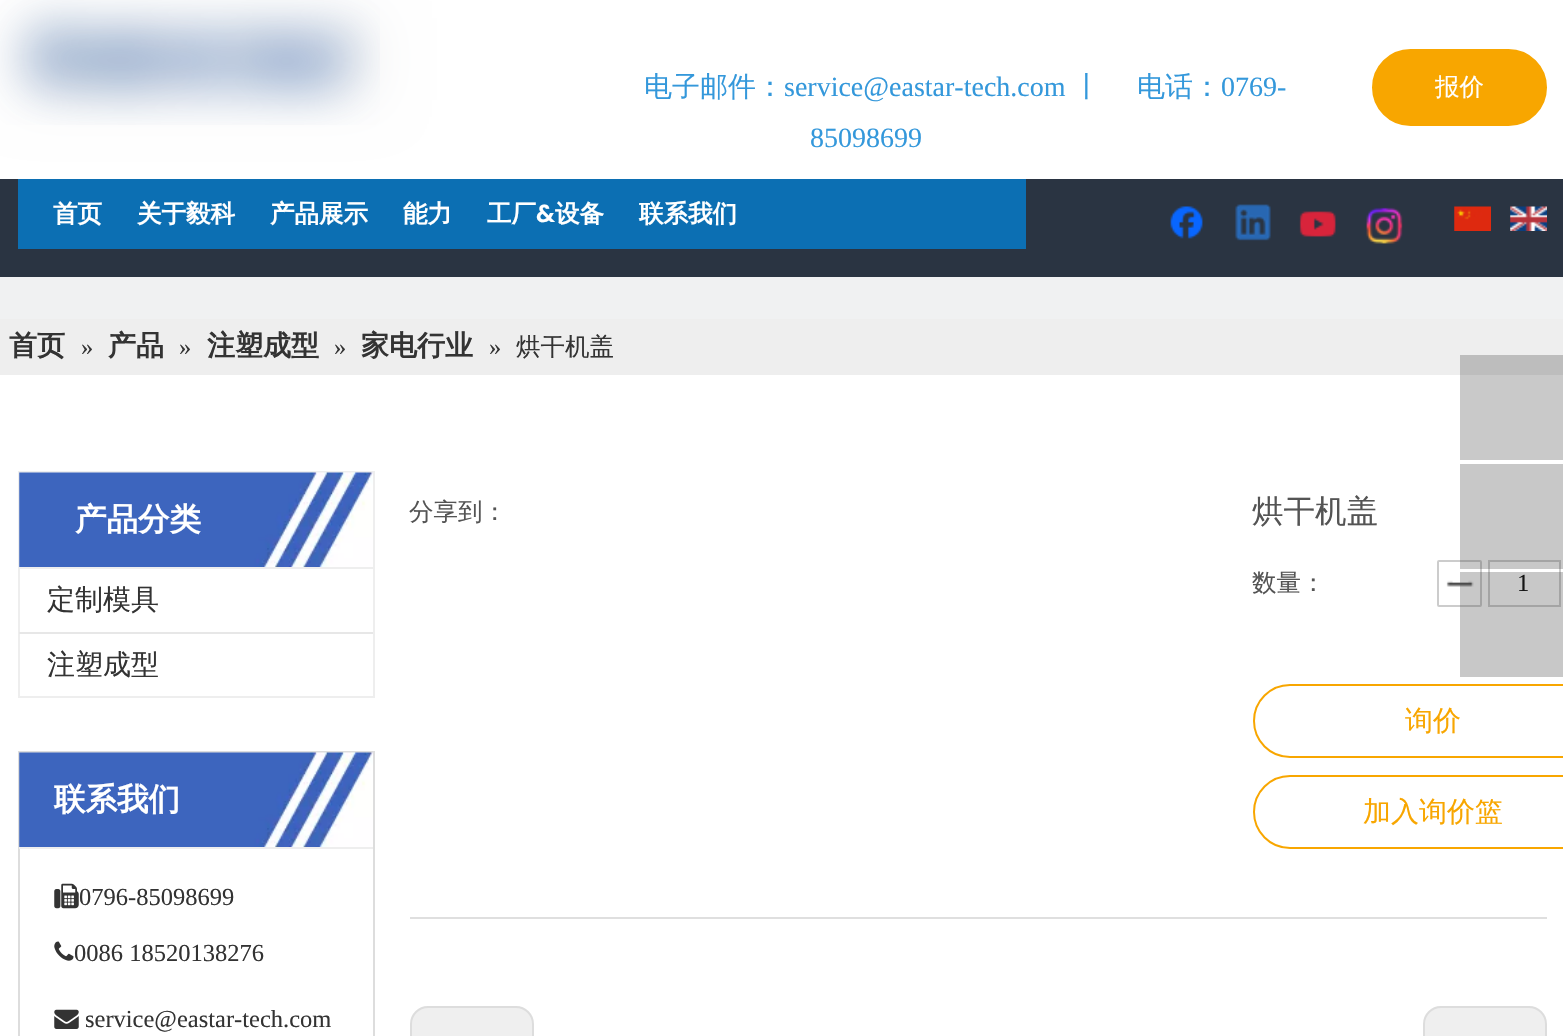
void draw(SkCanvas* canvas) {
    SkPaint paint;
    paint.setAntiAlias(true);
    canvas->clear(0xFFFFFFFF);
    paint.setColor(0xFFC9C9C9);
    canvas->drawRect(SkRect::MakeXYWH(1460, 375, 103, 85), paint);
    paint.setColor(0xFFF0F1F2);
    paint.setMaskFilter(SkMaskFilter::MakeBlur(kNormal_SkBlurStyle, 26));
    canvas->drawRect(SkRect::MakeXYWH(18, 18, 357, 82), paint);
    paint.setMaskFilter(nullptr);
    canvas->drawImageRect(SkImages::DeferredFromEncodedData(SkData::MakeFromFileName("img1.png")), SkRect::MakeXYWH(0, 0, 380, 125), SkSamplingOptions());
    SkFont font1(fontMgr->matchFamilyStyle("FontAwesome", SkFontStyle::Normal()), 28);
    font1.setSubpixel(true);
    paint.setColor(0xFF3498DB);
    canvas->drawString("", 616, 96, font1, paint);
    SkFont font2(fontMgr->matchFamilyStyle("WenQuanYi Zen Hei", SkFontStyle(500, SkFontStyle::kNormal_Width, SkFontStyle::kUpright_Slant)), 28);
    font2.setSubpixel(true);
    canvas->drawString("电子邮件：", 644, 96, font2, paint);
    SkFont font3(fontMgr->matchFamilyStyle("Liberation Serif", SkFontStyle::Normal()), 28);
    font3.setSubpixel(true);
    canvas->drawString("service@eastar-tech.com", 784, 96, font3, paint);
    canvas->drawString("丨", 1073, 96, font2, paint);
    canvas->drawString("", 1108, 96, font1, paint);
    canvas->drawString("电话：", 1137, 96, font2, paint);
    canvas->drawString("0769-", 1221, 96, font3, paint);
    canvas->drawString("85098699", 810, 147, font3, paint);
    paint.setColor(0xFFF8A600);
    canvas->drawRoundRect(SkRect::MakeXYWH(1374, 51, 171, 73), 36.5f, 36.5f, paint);
    paint.setStyle(SkPaint::kStroke_Style);
    paint.setStrokeWidth(4);
    canvas->drawRoundRect(SkRect::MakeXYWH(1374, 51, 171, 73), 36.5f, 36.5f, paint);
    SkFont font4(fontMgr->matchFamilyStyle("WenQuanYi Zen Hei", SkFontStyle(500, SkFontStyle::kNormal_Width, SkFontStyle::kUpright_Slant)), 24.5f);
    font4.setSubpixel(true);
    paint.setStyle(SkPaint::kFill_Style);
    paint.setColor(0xFFFFFFFF);
    canvas->drawString("报价", 1435, 95, font4, paint);
    paint.setColor(0xFF2A3442);
    canvas->drawRect(SkRect::MakeXYWH(0, 179, 1563, 98), paint);
    paint.setColor(0xFF0C6FB3);
    canvas->drawRect(SkRect::MakeXYWH(18, 179, 1008, 70), paint);
    SkFont font5(fontMgr->matchFamilyStyle("WenQuanYi Zen Hei", SkFontStyle::Bold()), 24.5f);
    font5.setSubpixel(true);
    paint.setColor(0xFFFFFFFF);
    canvas->drawString("首页", 53, 222, font5, paint);
    canvas->drawString("关于毅科", 137, 222, font5, paint);
    canvas->drawString("产品展示", 270, 222, font5, paint);
    canvas->drawString("能力", 403, 222, font5, paint);
    canvas->drawString("工厂", 487, 222, font5, paint);
    SkFont font6(fontMgr->matchFamilyStyle("Poppins", SkFontStyle(600, SkFontStyle::kNormal_Width, SkFontStyle::kUpright_Slant)), 24.5f);
    font6.setSubpixel(true);
    canvas->drawString("&", 536, 222, font6, paint);
    canvas->drawString("设备", 555, 222, font5, paint);
    canvas->drawString("联系我们", 639, 222, font5, paint);
    canvas->drawImageRect(SkImages::DeferredFromEncodedData(SkData::MakeFromFileName("img2.png")), SkRect::MakeXYWH(1170, 206, 33, 33), SkSamplingOptions());
    canvas->drawImageRect(SkImages::DeferredFromEncodedData(SkData::MakeFromFileName("img3.png")), SkRect::MakeXYWH(1235, 204, 36, 37), SkSamplingOptions());
    canvas->drawImageRect(SkImages::DeferredFromEncodedData(SkData::MakeFromFileName("img4.png")), SkRect::MakeXYWH(1299, 211, 37, 26), SkSamplingOptions());
    canvas->drawImageRect(SkImages::DeferredFromEncodedData(SkData::MakeFromFileName("img5.png")), SkRect::MakeXYWH(1366, 207, 37, 37), SkSamplingOptions());
    canvas->drawImageRect(SkImages::DeferredFromEncodedData(SkData::MakeFromFileName("img6.png")), SkRect::MakeXYWH(1454, 206, 37, 25), SkSamplingOptions());
    canvas->drawImageRect(SkImages::DeferredFromEncodedData(SkData::MakeFromFileName("img7.png")), SkRect::MakeXYWH(1510, 206, 37, 25), SkSamplingOptions());
    paint.setColor(0xFFF0F1F2);
    canvas->drawRect(SkRect::MakeXYWH(0, 277, 1563, 42), paint);
    paint.setColor(0xFFEEEEEE);
    canvas->drawRect(SkRect::MakeXYWH(0, 319, 1563, 56), paint);
    paint.setColor(0xFFBDBDBD);
    canvas->drawRect(SkRect::MakeXYWH(1460, 355, 103, 20), paint);
    SkFont font7(fontMgr->matchFamilyStyle("WenQuanYi Zen Hei", SkFontStyle::Bold()), 28);
    font7.setSubpixel(true);
    paint.setColor(0xFF333333);
    canvas->drawString("首页", 9, 355, font7, paint);
    SkFont font8(fontMgr->matchFamilyStyle("Liberation Serif", SkFontStyle::Normal()), 24.5f);
    font8.setSubpixel(true);
    canvas->drawString("»", 81, 355, font8, paint);
    canvas->drawString("产品", 108, 355, font7, paint);
    canvas->drawString("»", 179, 355, font8, paint);
    canvas->drawString("注塑成型", 207, 355, font7, paint);
    canvas->drawString("»", 334, 355, font8, paint);
    canvas->drawString("家电行业", 361, 355, font7, paint);
    canvas->drawString("»", 489, 355, font8, paint);
    canvas->drawString("烘干机盖", 516, 355, font4, paint);
    paint.setStyle(SkPaint::kStroke_Style);
    paint.setStrokeWidth(2);
    paint.setColor(0xFFEEEEEE);
    canvas->drawRect(SkRect::MakeXYWH(19, 472, 355, 225), paint);
    canvas->drawImageRect(SkImages::DeferredFromEncodedData(SkData::MakeFromFileName("img8.png")), SkRect::MakeXYWH(19, 472, 354, 95), SkSamplingOptions());
    paint.setStyle(SkPaint::kFill_Style);
    canvas->drawRect(SkRect::MakeXYWH(19, 567, 354, 2), paint);
    SkFont font9(fontMgr->matchFamilyStyle("WenQuanYi Zen Hei", SkFontStyle::Bold()), 31.5f);
    font9.setSubpixel(true);
    paint.setColor(0xFFFFFFFF);
    canvas->drawString("产品分类", 75, 530, font9, paint);
    paint.setColor(0xFF333333);
    canvas->drawString("定制模具", 47, 609, font2, paint);
    paint.setColor(0xFFE7E7E7);
    canvas->drawRect(SkRect::MakeXYWH(19, 632, 354, 2), paint);
    paint.setColor(0xFF333333);
    canvas->drawString("注塑成型", 47, 674, font2, paint);
    paint.setStyle(SkPaint::kStroke_Style);
    paint.setColor(0xFFDDDDDD);
    canvas->drawRect(SkRect::MakeXYWH(19, 752, 355, 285), paint);
    canvas->drawImageRect(SkImages::DeferredFromEncodedData(SkData::MakeFromFileName("img9.png")), SkRect::MakeXYWH(19, 752, 354, 95), SkSamplingOptions());
    paint.setStyle(SkPaint::kFill_Style);
    paint.setColor(0xFFEEEEEE);
    canvas->drawRect(SkRect::MakeXYWH(19, 847, 354, 2), paint);
    paint.setColor(0xFFFFFFFF);
    canvas->drawString("联系我们", 54, 810, font9, paint);
    canvas->drawImageRect(SkImages::DeferredFromEncodedData(SkData::MakeFromFileName("img10.png")), SkRect::MakeXYWH(54, 883, 25, 26), SkSamplingOptions());
    paint.setColor(0xFF333333);
    canvas->drawString("0796-85098699", 79, 905, font8, paint);
    canvas->drawImageRect(SkImages::DeferredFromEncodedData(SkData::MakeFromFileName("img11.png")), SkRect::MakeXYWH(54, 941, 20, 20), SkSamplingOptions());
    canvas->drawString("0086 18520138276", 74, 961, font8, paint);
    canvas->drawImageRect(SkImages::DeferredFromEncodedData(SkData::MakeFromFileName("img12.png")), SkRect::MakeXYWH(54, 1009, 25, 20), SkSamplingOptions());
    canvas->drawString("service@eastar-tech.com", 85, 1027, font8, paint);
    paint.setColor(0xFF545454);
    canvas->drawString("分享到：", 409, 520, font4, paint);
    SkFont font10(fontMgr->matchFamilyStyle("WenQuanYi Zen Hei", SkFontStyle(500, SkFontStyle::kNormal_Width, SkFontStyle::kUpright_Slant)), 31.5f);
    font10.setSubpixel(true);
    canvas->drawString("烘干机盖", 1252, 522, font10, paint);
    canvas->drawString("数量：", 1252, 591, font4, paint);
    canvas->drawImageRect(SkImages::DeferredFromEncodedData(SkData::MakeFromFileName("img13.png")), SkRect::MakeXYWH(1446, 580, 28, 7), SkSamplingOptions());
    paint.setStyle(SkPaint::kStroke_Style);
    paint.setColor(0xFFCCCCCC);
    canvas->drawRoundRect(SkRect::MakeXYWH(1438, 561, 43, 45), 1, 1, paint);
    canvas->drawRect(SkRect::MakeXYWH(1489, 561, 71, 45), paint);
    paint.setStyle(SkPaint::kFill_Style);
    paint.setColor(0xFF000000);
    canvas->drawString("1", 1517, 591, font8, paint);
    paint.setStyle(SkPaint::kStroke_Style);
    paint.setColor(0xFFF8A600);
    canvas->drawRoundRect(SkRect::MakeXYWH(1254, 685, 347, 72), 36, 36, paint);
    paint.setStyle(SkPaint::kFill_Style);
    canvas->drawString("询价", 1405, 730, font2, paint);
    paint.setStyle(SkPaint::kStroke_Style);
    canvas->drawRoundRect(SkRect::MakeXYWH(1254, 776, 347, 72), 36, 36, paint);
    paint.setStyle(SkPaint::kFill_Style);
    canvas->drawString("加入询价篮", 1363, 821, font2, paint);
    paint.setColor(0xFFDFDFDF);
    canvas->drawRect(SkRect::MakeXYWH(410, 917, 1137, 2), paint);
    paint.setColor(0xFFEFEFEF);
    canvas->drawRoundRect(SkRect::MakeXYWH(411, 1007, 122, 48), 17, 17, paint);
    paint.setStyle(SkPaint::kStroke_Style);
    paint.setColor(0xFFDDDDDD);
    canvas->drawRoundRect(SkRect::MakeXYWH(411, 1007, 122, 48), 17, 17, paint);
    paint.setStyle(SkPaint::kFill_Style);
    paint.setColor(0xFFEFEFEF);
    canvas->drawRoundRect(SkRect::MakeXYWH(1424, 1007, 122, 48), 17, 17, paint);
    paint.setStyle(SkPaint::kStroke_Style);
    paint.setColor(0xFFDDDDDD);
    canvas->drawRoundRect(SkRect::MakeXYWH(1424, 1007, 122, 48), 17, 17, paint);
    paint.setStyle(SkPaint::kFill_Style);
    paint.setColor(0x4D4A4A4A);
    canvas->drawRect(SkRect::MakeXYWH(1460, 464, 103, 105), paint);
    canvas->drawRect(SkRect::MakeXYWH(1460, 572, 103, 105), paint);
}
